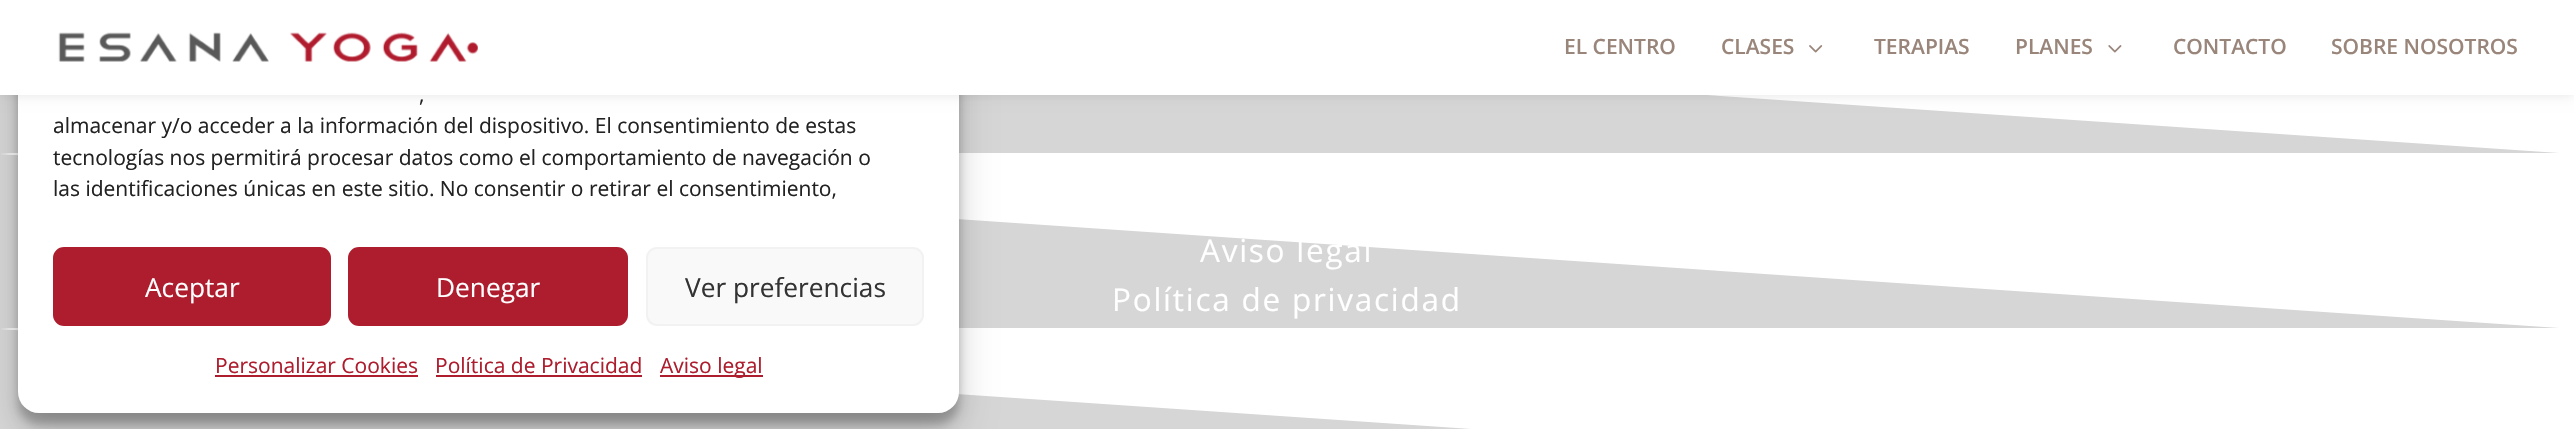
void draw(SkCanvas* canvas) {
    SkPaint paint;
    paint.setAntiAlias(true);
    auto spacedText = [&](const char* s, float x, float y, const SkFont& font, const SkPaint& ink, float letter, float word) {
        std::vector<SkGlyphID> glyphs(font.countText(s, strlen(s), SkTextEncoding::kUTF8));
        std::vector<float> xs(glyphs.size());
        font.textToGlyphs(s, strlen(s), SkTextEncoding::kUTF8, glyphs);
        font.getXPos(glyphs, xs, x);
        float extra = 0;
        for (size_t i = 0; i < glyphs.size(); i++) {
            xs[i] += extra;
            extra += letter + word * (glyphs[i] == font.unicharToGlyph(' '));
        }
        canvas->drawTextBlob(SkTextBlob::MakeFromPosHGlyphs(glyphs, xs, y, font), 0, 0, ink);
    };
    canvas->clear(0xFFD6D6D6);
    canvas->drawImageRect(SkImages::DeferredFromEncodedData(SkData::MakeFromFileName("img4.png")), SkRect::MakeXYWH(1, 95, 2573, 334), SkSamplingOptions());
    paint.setColor(0x3B000000);
    paint.setMaskFilter(SkMaskFilter::MakeBlur(kNormal_SkBlurStyle, 5));
    canvas->drawRoundRect(SkRect::MakeXYWH(18, 28, 941, 396), 21, 21, paint);
    paint.setMaskFilter(nullptr);
    paint.setColor(0x30000000);
    paint.setMaskFilter(SkMaskFilter::MakeBlur(kNormal_SkBlurStyle, 17.5f));
    canvas->drawRoundRect(SkRect::MakeXYWH(18, 35, 941, 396), 21, 21, paint);
    paint.setMaskFilter(nullptr);
    paint.setColor(0xFFFFFFFF);
    canvas->drawRoundRect(SkRect::MakeXYWH(18, 18, 941, 395), 21, 21, paint);
    SkFont font1(fontMgr->matchFamilyStyle("Open Sans", SkFontStyle::Normal()), 21);
    font1.setSubpixel(true);
    paint.setColor(0xFF222222);
    canvas->drawString(",", 419, 102, font1, paint);
    canvas->drawString("almacenar y/o acceder a la información del dispositivo. El consentimiento de estas", 53, 133, font1, paint);
    canvas->drawString("tecnologías nos permitirá procesar datos como el comportamiento de navegación o", 53, 165, font1, paint);
    canvas->drawString("las identificaciones únicas en este sitio. No consentir o retirar el consentimiento,", 53, 196, font1, paint);
    paint.setColor(0xFFAD1D2E);
    canvas->drawRoundRect(SkRect::MakeXYWH(54, 248, 276, 77), 10, 10, paint);
    paint.setStyle(SkPaint::kStroke_Style);
    paint.setStrokeWidth(2);
    canvas->drawRoundRect(SkRect::MakeXYWH(54, 248, 276, 77), 10, 10, paint);
    SkFont font2(fontMgr->matchFamilyStyle("Open Sans", SkFontStyle::Normal()), 26.25f);
    font2.setSubpixel(true);
    paint.setStyle(SkPaint::kFill_Style);
    paint.setColor(0xFFFFFFFF);
    canvas->drawString("Aceptar", 145, 297, font2, paint);
    paint.setColor(0xFFAD1D2E);
    canvas->drawRoundRect(SkRect::MakeXYWH(349, 248, 278, 77), 10, 10, paint);
    paint.setStyle(SkPaint::kStroke_Style);
    canvas->drawRoundRect(SkRect::MakeXYWH(349, 248, 278, 77), 10, 10, paint);
    paint.setStyle(SkPaint::kFill_Style);
    paint.setColor(0xFFFFFFFF);
    canvas->drawString("Denegar", 436, 297, font2, paint);
    paint.setColor(0xFFF9F9F9);
    canvas->drawRoundRect(SkRect::MakeXYWH(647, 248, 276, 77), 10, 10, paint);
    paint.setStyle(SkPaint::kStroke_Style);
    paint.setColor(0xFFF2F2F2);
    canvas->drawRoundRect(SkRect::MakeXYWH(647, 248, 276, 77), 10, 10, paint);
    paint.setStyle(SkPaint::kFill_Style);
    paint.setColor(0xFF333333);
    canvas->drawString("Ver preferencias", 685, 297, font2, paint);
    paint.setColor(0xFFAD1D2E);
    canvas->drawString("Personalizar Cookies", 215, 373, font1, paint);
    canvas->drawRect(SkRect::MakeXYWH(215, 375, 203, 2), paint);
    canvas->drawString("Política de Privacidad", 435, 373, font1, paint);
    canvas->drawRect(SkRect::MakeXYWH(436, 375, 206, 2), paint);
    canvas->drawRect(SkRect::MakeXYWH(660, 375, 103, 2), paint);
    canvas->drawString("Aviso legal", 660, 373, font1, paint);
    paint.setColor(0x1A000000);
    paint.setMaskFilter(SkMaskFilter::MakeBlur(kNormal_SkBlurStyle, 6));
    canvas->drawRect(SkRect::MakeXYWH(0, 0, 2574, 95), paint);
    paint.setMaskFilter(nullptr);
    paint.setColor(0xFFFFFFFF);
    canvas->drawRect(SkRect::MakeXYWH(0, 0, 2574, 95), paint);
    canvas->drawImageRect(SkImages::DeferredFromEncodedData(SkData::MakeFromFileName("img1.png")), SkRect::MakeXYWH(58, 32, 420, 30), SkSamplingOptions());
    SkFont font3(fontMgr->matchFamilyStyle("Open Sans", SkFontStyle(600, SkFontStyle::kNormal_Width, SkFontStyle::kUpright_Slant)), 21);
    font3.setSubpixel(true);
    paint.setColor(0xFF99857A);
    canvas->drawString("EL CENTRO", 1564, 54, font3, paint);
    canvas->drawString("CLASES", 1721, 54, font3, paint);
    canvas->drawImageRect(SkImages::DeferredFromEncodedData(SkData::MakeFromFileName("img2.png")), SkRect::MakeXYWH(1809, 45, 14, 8), SkSamplingOptions());
    canvas->drawString("TERAPIAS", 1874, 54, font3, paint);
    canvas->drawString("PLANES", 2015, 54, font3, paint);
    canvas->drawImageRect(SkImages::DeferredFromEncodedData(SkData::MakeFromFileName("img3.png")), SkRect::MakeXYWH(2108, 45, 14, 8), SkSamplingOptions());
    canvas->drawString("CONTACTO", 2173, 54, font3, paint);
    canvas->drawString("SOBRE NOSOTROS", 2331, 54, font3, paint);
    SkFont font4(fontMgr->matchFamilyStyle("Open Sans", SkFontStyle::Normal()), 31.5f);
    font4.setSubpixel(true);
    paint.setColor(0xFFFFFFFF);
    spacedText("Aviso legal", 1200, 262, font4, paint, 1.75f, 0);
    spacedText("Política de privacidad", 1112, 311, font4, paint, 1.75f, 0);
}
